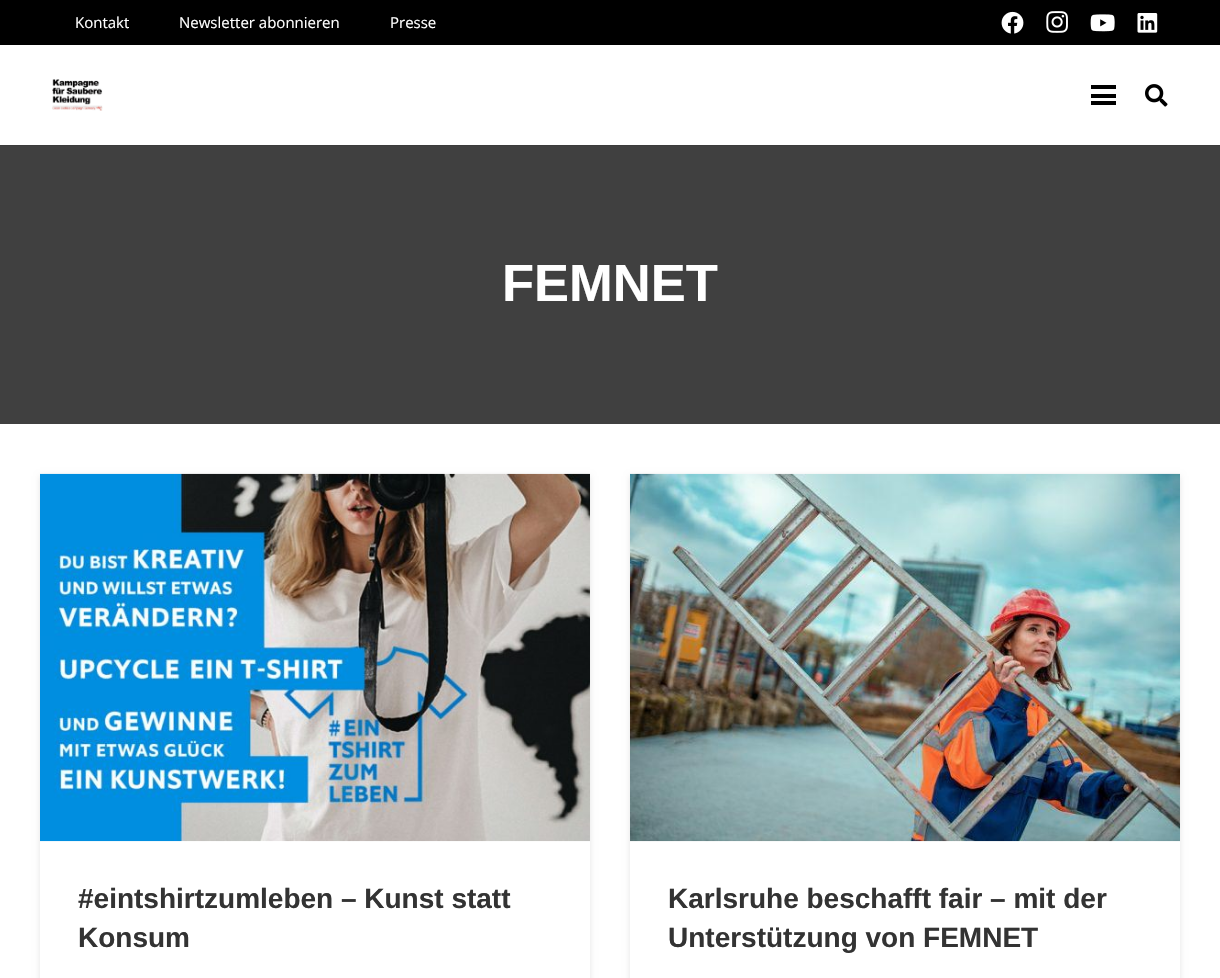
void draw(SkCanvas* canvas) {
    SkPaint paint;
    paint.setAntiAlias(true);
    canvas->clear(0xFFFFFFFF);
    paint.setColor(0xFF000000);
    canvas->drawRect(SkRect::MakeXYWH(0, 0, 1220, 45), paint);
    SkFont font1(fontMgr->matchFamilyStyle("Open Sans", SkFontStyle::Normal()), 15);
    font1.setSubpixel(true);
    paint.setColor(0xFFFFFFFF);
    canvas->drawString("Kontakt", 75, 28, font1, paint);
    canvas->drawString("Newsletter abonnieren", 179, 28, font1, paint);
    canvas->drawString("Presse", 390, 28, font1, paint);
    canvas->drawImageRect(SkImages::DeferredFromEncodedData(SkData::MakeFromFileName("img1.png")), SkRect::MakeXYWH(1001, 11, 23, 23), SkSamplingOptions());
    canvas->drawImageRect(SkImages::DeferredFromEncodedData(SkData::MakeFromFileName("img2.png")), SkRect::MakeXYWH(1046, 11, 22, 22), SkSamplingOptions());
    canvas->drawImageRect(SkImages::DeferredFromEncodedData(SkData::MakeFromFileName("img3.png")), SkRect::MakeXYWH(1090, 14, 25, 18), SkSamplingOptions());
    canvas->drawImageRect(SkImages::DeferredFromEncodedData(SkData::MakeFromFileName("img4.png")), SkRect::MakeXYWH(1137, 13, 21, 20), SkSamplingOptions());
    paint.setColor(0xFF3B3B3B);
    canvas->drawRect(SkRect::MakeXYWH(0, 145, 1220, 1), paint);
    canvas->drawImageRect(SkImages::DeferredFromEncodedData(SkData::MakeFromFileName("img5.png")), SkRect::MakeXYWH(52, 79, 51, 32), SkSamplingOptions());
    paint.setColor(0xFF000000);
    canvas->drawRect(SkRect::MakeXYWH(1091, 94, 25, 4), paint);
    canvas->drawRect(SkRect::MakeXYWH(1091, 85, 25, 4), paint);
    canvas->drawRect(SkRect::MakeXYWH(1091, 101, 25, 4), paint);
    canvas->drawImageRect(SkImages::DeferredFromEncodedData(SkData::MakeFromFileName("img6.png")), SkRect::MakeXYWH(1145, 84, 23, 23), SkSamplingOptions());
    paint.setColor(0xFF404040);
    canvas->drawRect(SkRect::MakeXYWH(0, 146, 1220, 278), paint);
    SkFont font2(fontMgr->matchFamilyStyle("Liberation Sans", SkFontStyle::Bold()), 52.5f);
    font2.setSubpixel(true);
    paint.setColor(0xFFFFFFFF);
    canvas->drawString("FEMNET", 502, 301, font2, paint);
    canvas->save();
    canvas->clipPath(SkPathBuilder(SkPathFillType::kEvenOdd).moveTo(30, 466).lineTo(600, 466).lineTo(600, 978).lineTo(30, 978).close().moveTo(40, 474).lineTo(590, 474).lineTo(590, 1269).lineTo(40, 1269).close().detach(), true);
    paint.setColor(0x1A000000);
    paint.setMaskFilter(SkMaskFilter::MakeBlur(kNormal_SkBlurStyle, 3));
    canvas->drawRect(SkRect::MakeXYWH(40, 476, 550, 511), paint);
    paint.setMaskFilter(nullptr);
    canvas->restore();
    canvas->drawImageRect(SkImages::DeferredFromEncodedData(SkData::MakeFromFileName("img7.png")), SkRect::MakeXYWH(40, 473, 550, 369), SkSamplingOptions());
    SkFont font3(fontMgr->matchFamilyStyle("Liberation Sans", SkFontStyle::Bold()), 28);
    font3.setSubpixel(true);
    paint.setColor(0xFF333333);
    canvas->drawString("#eintshirtzumleben – Kunst statt", 78, 908, font3, paint);
    canvas->drawString("Konsum", 78, 947, font3, paint);
    canvas->save();
    canvas->clipPath(SkPathBuilder(SkPathFillType::kEvenOdd).moveTo(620, 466).lineTo(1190, 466).lineTo(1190, 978).lineTo(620, 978).close().moveTo(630, 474).lineTo(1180, 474).lineTo(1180, 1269).lineTo(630, 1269).close().detach(), true);
    paint.setColor(0x1A000000);
    paint.setMaskFilter(SkMaskFilter::MakeBlur(kNormal_SkBlurStyle, 3));
    canvas->drawRect(SkRect::MakeXYWH(630, 476, 550, 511), paint);
    paint.setMaskFilter(nullptr);
    canvas->restore();
    canvas->drawImageRect(SkImages::DeferredFromEncodedData(SkData::MakeFromFileName("img8.png")), SkRect::MakeXYWH(630, 473, 550, 369), SkSamplingOptions());
    paint.setColor(0xFF333333);
    canvas->drawString("Karlsruhe beschafft fair – mit der", 668, 908, font3, paint);
    canvas->drawString("Unterstützung von FEMNET", 668, 947, font3, paint);
}
